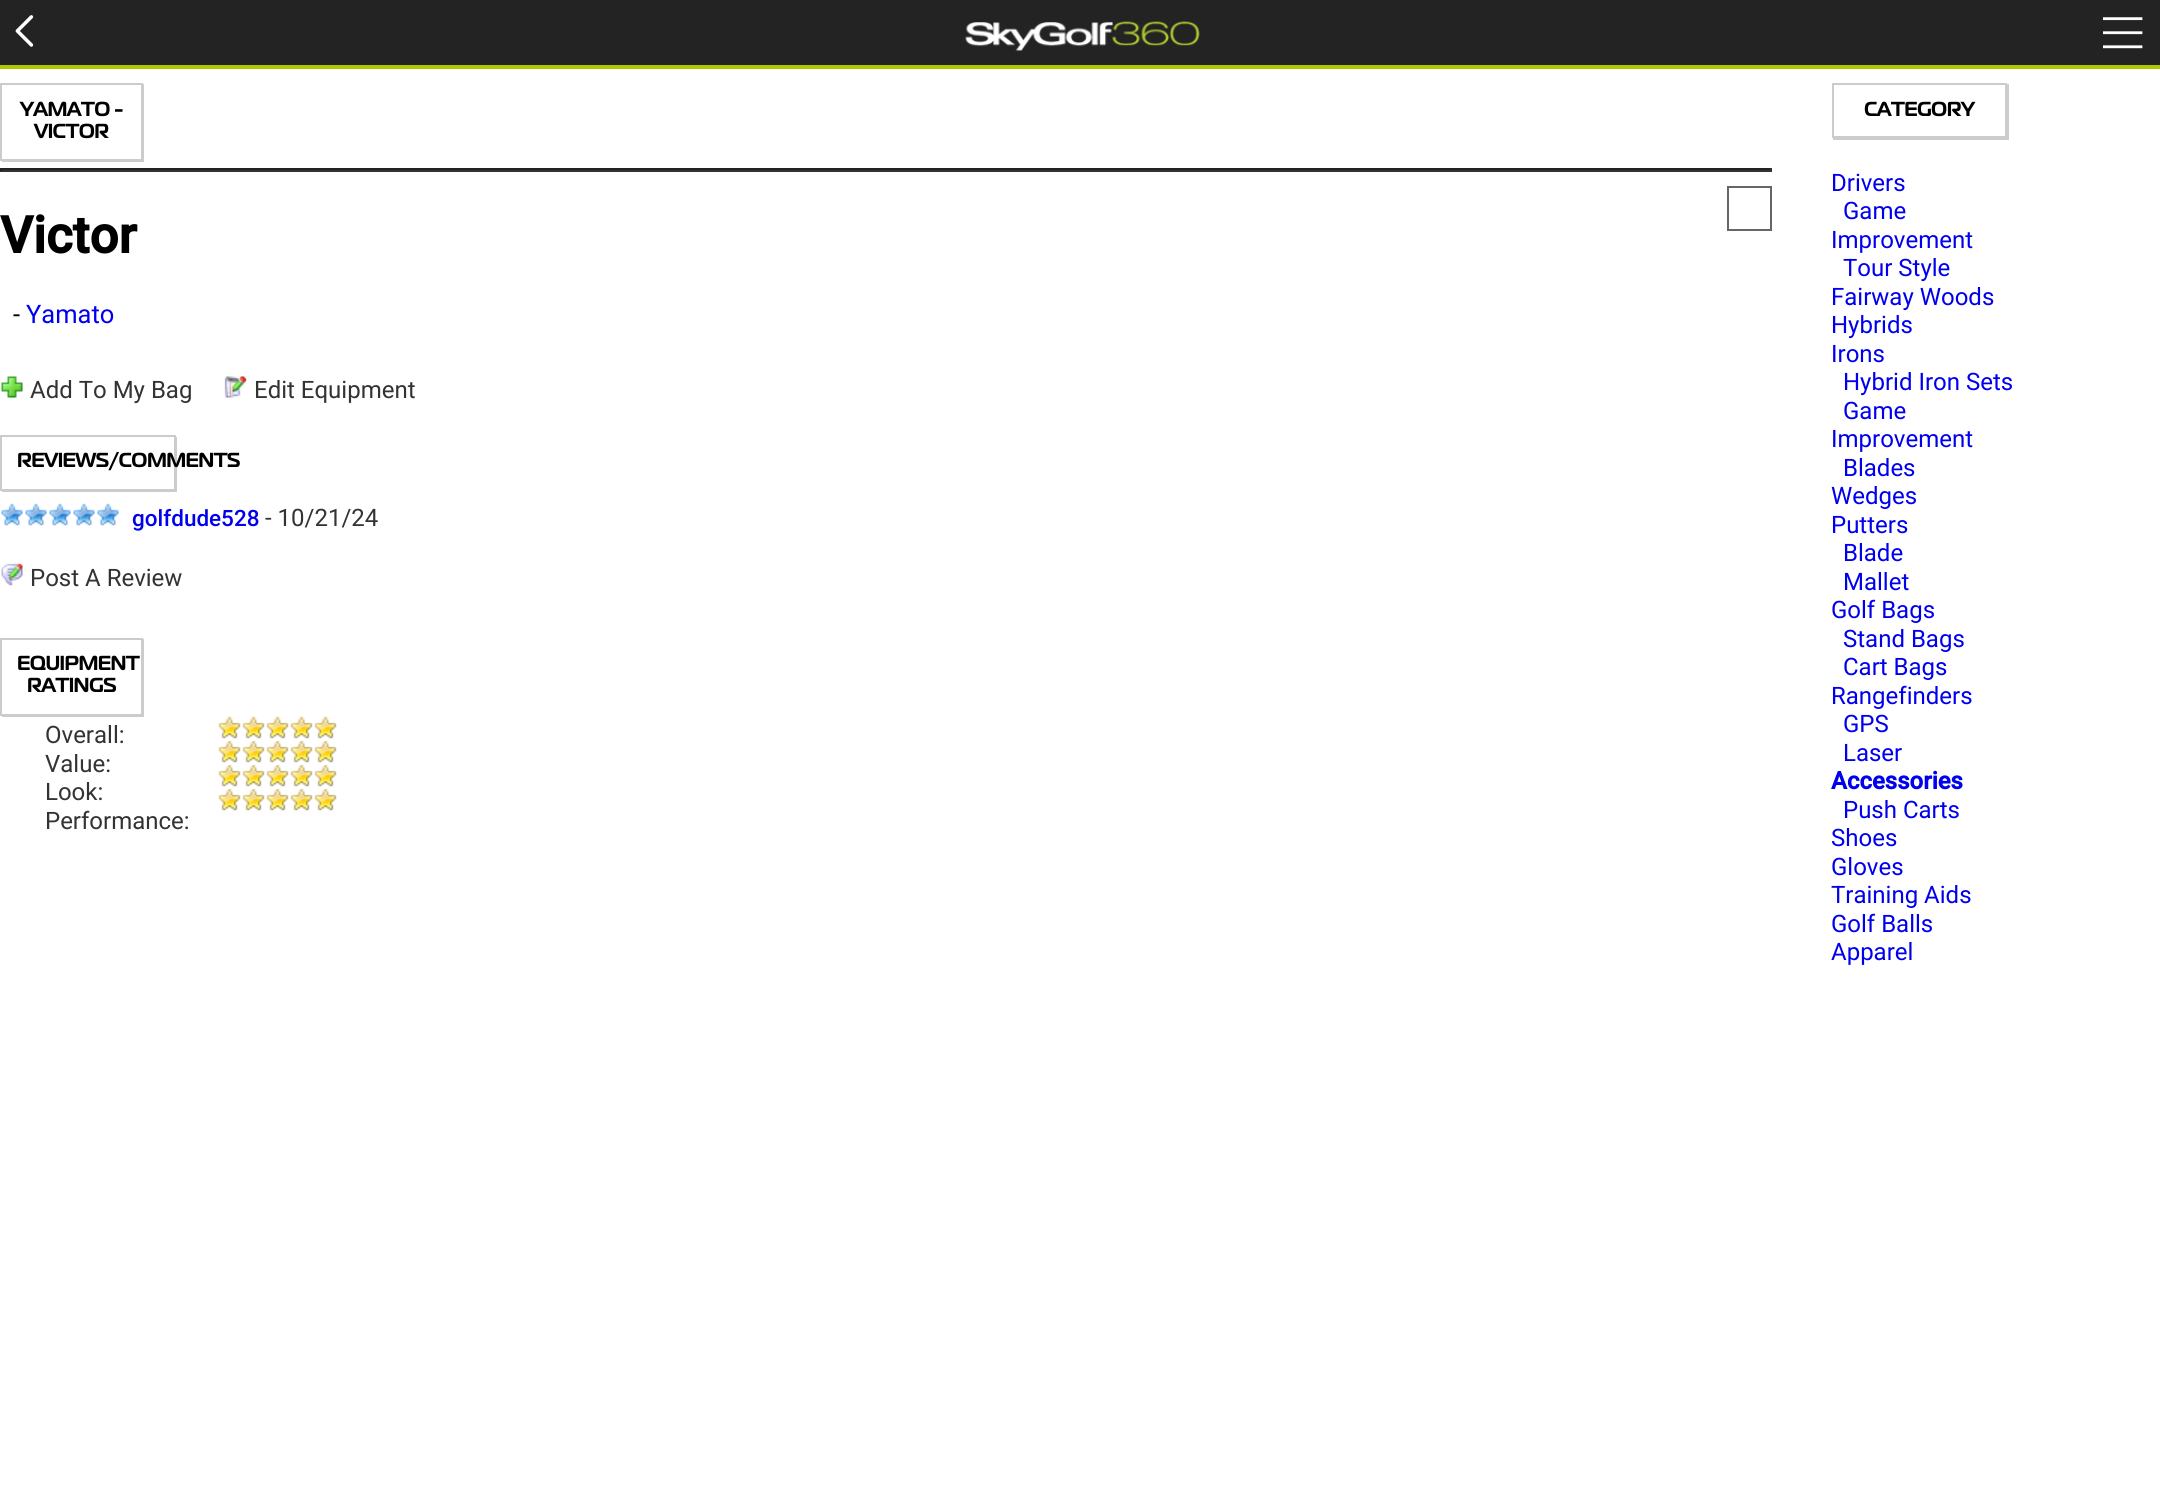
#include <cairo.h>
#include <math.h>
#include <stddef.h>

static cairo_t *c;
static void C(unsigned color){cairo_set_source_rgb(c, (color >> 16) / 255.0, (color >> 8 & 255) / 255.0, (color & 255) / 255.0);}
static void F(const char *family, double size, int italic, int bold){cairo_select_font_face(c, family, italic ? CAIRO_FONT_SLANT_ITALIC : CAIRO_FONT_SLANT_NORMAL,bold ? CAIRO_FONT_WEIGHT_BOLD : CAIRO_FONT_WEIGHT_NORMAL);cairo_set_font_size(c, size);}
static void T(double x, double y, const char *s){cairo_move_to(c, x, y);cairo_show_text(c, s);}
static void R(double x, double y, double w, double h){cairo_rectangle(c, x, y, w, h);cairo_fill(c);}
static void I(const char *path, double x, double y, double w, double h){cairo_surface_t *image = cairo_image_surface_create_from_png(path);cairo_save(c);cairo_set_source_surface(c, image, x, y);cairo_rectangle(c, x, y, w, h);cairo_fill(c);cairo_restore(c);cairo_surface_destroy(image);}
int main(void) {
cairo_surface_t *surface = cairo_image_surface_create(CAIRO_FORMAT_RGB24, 2160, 1512);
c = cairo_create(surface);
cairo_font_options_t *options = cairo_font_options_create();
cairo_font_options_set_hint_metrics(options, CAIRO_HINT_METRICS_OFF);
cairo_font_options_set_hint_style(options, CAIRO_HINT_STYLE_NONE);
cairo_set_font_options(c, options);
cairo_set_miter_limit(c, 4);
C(0xffffff);
cairo_paint(c);
C(0xafc603);
R(0,65,2160,4);
C(0x232323);
R(0,0,2160,65);
I("1.png",965,21,235,30);
I("2.png",15,15,19,32);
I("3.png",2103,17,40,32);
C(0xcccccc);
cairo_new_path(c);
cairo_move_to(c,2,160);
cairo_line_to(c,2,162);
cairo_line_to(c,144,162);
cairo_line_to(c,144,84);
cairo_line_to(c,142,84);
cairo_line_to(c,142,160);
cairo_close_path(c);
cairo_fill(c);
cairo_rectangle(c,1,84,141,76);
cairo_stroke(c);
F("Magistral",19.5,0,1);
C(0x000000);
T(20,116,"YAMATO -");
T(34,138,"VICTOR");
C(0x222222);
R(0,168,1772,2);
C(0x333333);
R(1770,168,2,3);
R(0,170,1772,2);
C(0x222222);
R(0,168,2,3);
F("Roboto",51,0,1);
C(0x000000);
T(0,253,"Victor");
cairo_rectangle(c,1728,187,43,43);
C(0x666666);
cairo_stroke(c);
F("Roboto",25.5,0,0);
C(0x000000);
T(13,323,"-");
C(0x0000ee);
T(26,323,"Yamato");
I("4.png",1,376,22,22);
F("Roboto",24,0,0);
C(0x333333);
T(30,398,"Add To My Bag");
I("5.png",224,376,23,22);
T(254,398,"Edit Equipment");
C(0xcccccc);
cairo_new_path(c);
cairo_move_to(c,2,490);
cairo_line_to(c,2,492);
cairo_line_to(c,177,492);
cairo_line_to(c,177,437);
cairo_line_to(c,176,437);
cairo_line_to(c,176,490);
cairo_close_path(c);
cairo_fill(c);
cairo_rectangle(c,1,436,174,54);
cairo_stroke(c);
F("Magistral",19.5,0,1);
C(0x000000);
T(17,467,"REVIEWS/COMMENTS");
I("6.png",1,503,22,23);
I("6.png",25,503,22,23);
I("6.png",49,503,22,23);
I("6.png",73,503,22,23);
I("6.png",97,503,22,23);
F("Roboto Medium",22.5,0,0);
C(0x0000ee);
T(132,526,"golfdude528");
F("Roboto",24,0,0);
C(0x333333);
T(265,526,"- 10/21/24");
I("7.png",1,563,22,23);
T(30,586,"Post A Review");
C(0xcccccc);
cairo_new_path(c);
cairo_move_to(c,2,716);
cairo_line_to(c,2,717);
cairo_line_to(c,144,717);
cairo_line_to(c,144,639);
cairo_line_to(c,142,639);
cairo_line_to(c,142,716);
cairo_close_path(c);
cairo_fill(c);
cairo_rectangle(c,1,639,141,76);
cairo_stroke(c);
F("Magistral",19.5,0,1);
C(0x000000);
T(17,670,"EQUIPMENT");
T(27,692,"RATINGS");
F("Roboto",24,0,0);
C(0x333333);
T(45,743,"Overall:");
I("8.png",218,716,23,23);
I("8.png",242,716,23,23);
I("8.png",266,716,23,23);
I("9.png",290,716,23,23);
I("8.png",314,716,23,23);
T(45,772,"Value:");
I("8.png",218,740,23,23);
I("8.png",242,740,23,23);
I("8.png",266,740,23,23);
I("9.png",290,740,23,23);
I("8.png",314,740,23,23);
I("8.png",218,764,23,23);
I("8.png",242,764,23,23);
I("8.png",266,764,23,23);
I("9.png",290,764,23,23);
I("8.png",314,764,23,23);
T(45,800,"Look:");
I("8.png",218,788,23,23);
I("8.png",242,788,23,23);
I("8.png",266,788,23,23);
I("9.png",290,788,23,23);
I("8.png",314,788,23,23);
T(45,829,"Performance:");
C(0xcccccc);
cairo_new_path(c);
cairo_move_to(c,1833,138);
cairo_line_to(c,1833,140);
cairo_line_to(c,2009,140);
cairo_line_to(c,2009,84);
cairo_line_to(c,2007,84);
cairo_line_to(c,2007,138);
cairo_close_path(c);
cairo_fill(c);
cairo_rectangle(c,1833,84,173,53);
cairo_stroke(c);
F("Magistral",19.5,0,1);
C(0x000000);
T(1864,116,"CATEGORY");
F("Roboto",24,0,0);
C(0x0000ee);
T(1831,191,"Drivers");
T(1843,219,"Game");
T(1831,248,"Improvement");
T(1843,276,"Tour Style");
T(1831,305,"Fairway Woods");
T(1831,333,"Hybrids");
T(1831,362,"Irons");
T(1843,390,"Hybrid Iron Sets");
T(1843,419,"Game");
T(1831,447,"Improvement");
T(1843,476,"Blades");
T(1831,504,"Wedges");
T(1831,533,"Putters");
T(1843,561,"Blade");
T(1843,590,"Mallet");
T(1831,618,"Golf Bags");
T(1843,647,"Stand Bags");
T(1843,675,"Cart Bags");
T(1831,704,"Rangefinders");
T(1843,732,"GPS");
T(1843,761,"Laser");
F("Roboto",24,0,1);
T(1831,789,"Accessories");
F("Roboto",24,0,0);
T(1843,818,"Push Carts");
T(1831,846,"Shoes");
T(1831,875,"Gloves");
T(1831,903,"Training Aids");
T(1831,932,"Golf Balls");
T(1831,960,"Apparel");
cairo_surface_write_to_png(surface, "o.png");
cairo_font_options_destroy(options);
cairo_destroy(c);
cairo_surface_destroy(surface);
return 0;
}
